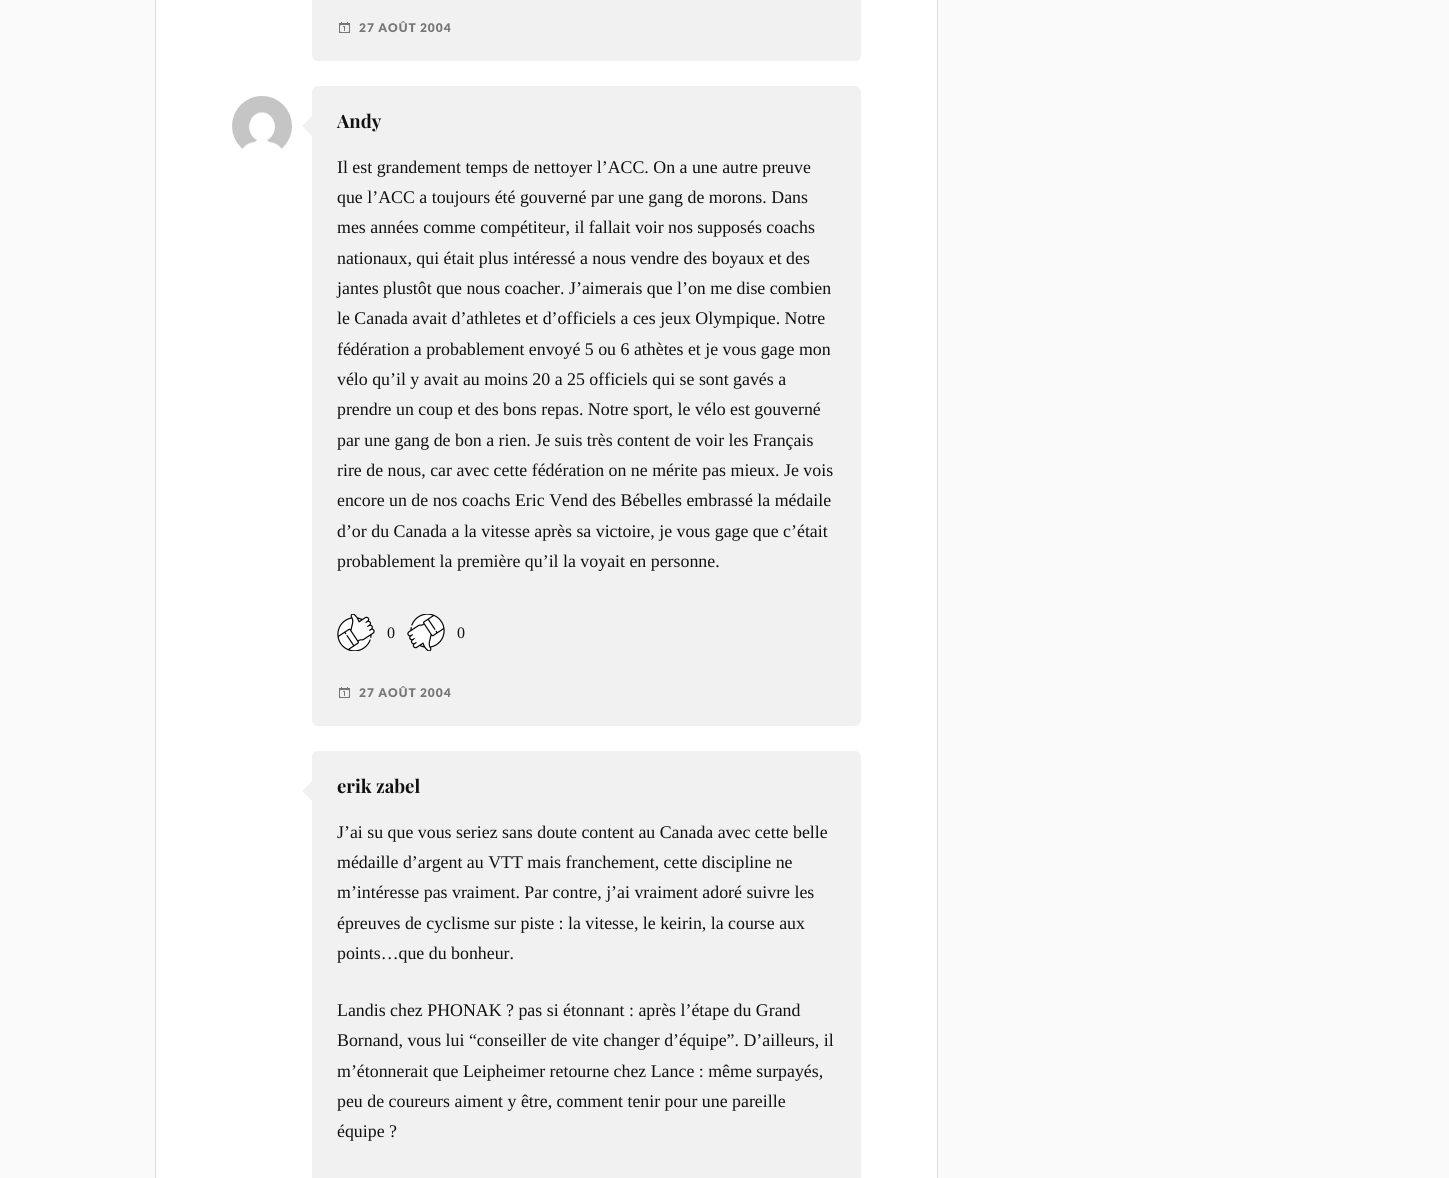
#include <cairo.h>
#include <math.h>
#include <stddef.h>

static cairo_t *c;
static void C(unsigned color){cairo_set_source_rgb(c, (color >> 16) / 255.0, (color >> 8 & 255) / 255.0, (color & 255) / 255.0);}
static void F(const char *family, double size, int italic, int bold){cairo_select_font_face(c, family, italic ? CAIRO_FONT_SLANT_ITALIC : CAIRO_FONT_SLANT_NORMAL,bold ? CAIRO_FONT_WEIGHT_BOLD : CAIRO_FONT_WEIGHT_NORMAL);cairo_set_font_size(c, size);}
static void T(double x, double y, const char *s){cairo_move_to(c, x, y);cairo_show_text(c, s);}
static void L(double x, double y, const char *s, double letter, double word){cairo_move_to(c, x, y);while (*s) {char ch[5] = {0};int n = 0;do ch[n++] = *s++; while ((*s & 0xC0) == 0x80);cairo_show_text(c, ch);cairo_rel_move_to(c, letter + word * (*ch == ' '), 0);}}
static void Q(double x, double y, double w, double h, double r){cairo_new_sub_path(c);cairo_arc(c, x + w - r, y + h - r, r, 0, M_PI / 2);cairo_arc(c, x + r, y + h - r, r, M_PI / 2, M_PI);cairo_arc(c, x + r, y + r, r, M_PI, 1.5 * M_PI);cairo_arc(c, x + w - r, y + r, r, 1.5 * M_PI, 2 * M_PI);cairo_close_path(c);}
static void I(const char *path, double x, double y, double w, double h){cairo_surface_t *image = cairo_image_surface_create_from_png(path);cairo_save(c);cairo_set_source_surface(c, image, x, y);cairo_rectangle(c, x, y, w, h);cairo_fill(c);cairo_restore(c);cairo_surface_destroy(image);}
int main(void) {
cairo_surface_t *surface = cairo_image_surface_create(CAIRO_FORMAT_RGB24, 1449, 1178);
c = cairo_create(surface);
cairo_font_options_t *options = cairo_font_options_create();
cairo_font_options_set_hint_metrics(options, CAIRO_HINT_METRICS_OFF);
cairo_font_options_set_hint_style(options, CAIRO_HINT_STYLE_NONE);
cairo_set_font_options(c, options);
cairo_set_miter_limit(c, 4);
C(0xfafafa);
cairo_paint(c);
C(0xffffff);
cairo_rectangle(c,155.5,-.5,782,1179);
cairo_fill_preserve(c);
C(0xdddddd);
cairo_set_line_width(c,1);
cairo_stroke(c);
C(0xf1f1f1);
Q(312,-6,549,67,6);
cairo_fill(c);
I("1.png",339,22,11,11);
F("Lato Black",12,0,0);
C(0x777777);
L(359,32,"27 AOÛT 2004",1,0);
I("2.png",232,96,60,53);
C(0xf1f1f1);
Q(312,86,549,640,6);
cairo_fill(c);
cairo_new_path(c);
cairo_move_to(c,312,116);
cairo_line_to(c,312,136);
cairo_line_to(c,302,126);
cairo_close_path(c);
cairo_fill(c);
F("Playfair Display",18.5,0,1);
C(0x111111);
T(337,128,"Andy");
F("Liberation Serif",17.85,0,0);
T(337,173,"Il est grandement temps de nettoyer l’ACC. On a une autre preuve");
T(337,203,"que l’ACC a toujours été gouverné par une gang de morons. Dans");
T(337,233,"mes années comme compétiteur, il fallait voir nos supposés coachs");
T(337,264,"nationaux, qui était plus intéressé a nous vendre des boyaux et des");
T(337,294,"jantes plustôt que nous coacher. J’aimerais que l’on me dise combien");
T(337,324,"le Canada avait d’athletes et d’officiels a ces jeux Olympique. Notre");
T(337,355,"fédération a probablement envoyé 5 ou 6 athètes et je vous gage mon");
T(337,385,"vélo qu’il y avait au moins 20 a 25 officiels qui se sont gavés a");
T(337,415,"prendre un coup et des bons repas. Notre sport, le vélo est gouverné");
T(337,446,"par une gang de bon a rien. Je suis très content de voir les Français");
T(337,476,"rire de nous, car avec cette fédération on ne mérite pas mieux. Je vois");
T(337,506,"encore un de nos coachs Eric Vend des Bébelles embrassé la médaile");
T(337,537,"d’or du Canada a la vitesse après sa victoire, je vous gage que c’était");
T(337,567,"probablement la première qu’il la voyait en personne.");
I("3.png",337,614,38,37);
F("Liberation Serif",16,0,0);
T(387,638,"0");
I("4.png",407,614,38,37);
T(457,638,"0");
I("1.png",339,687,11,11);
F("Lato Black",12,0,0);
C(0x777777);
L(359,697,"27 AOÛT 2004",1,0);
C(0xf1f1f1);
Q(312,751,549,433,6);
cairo_fill(c);
cairo_new_path(c);
cairo_move_to(c,312,781);
cairo_line_to(c,312,801);
cairo_line_to(c,302,791);
cairo_close_path(c);
cairo_fill(c);
F("Playfair Display",18.5,0,1);
C(0x111111);
T(337,793,"erik zabel");
F("Liberation Serif",17.85,0,0);
T(337,838,"J’ai su que vous seriez sans doute content au Canada avec cette belle");
T(337,868,"médaille d’argent au VTT mais franchement, cette discipline ne");
T(337,898,"m’intéresse pas vraiment. Par contre, j’ai vraiment adoré suivre les");
T(337,929,"épreuves de cyclisme sur piste : la vitesse, le keirin, la course aux");
T(337,959,"points…que du bonheur.");
T(337,1016,"Landis chez PHONAK ? pas si étonnant : après l’étape du Grand");
T(337,1046,"Bornand, vous lui “conseiller de vite changer d’équipe”. D’ailleurs, il");
T(337,1077,"m’étonnerait que Leipheimer retourne chez Lance : même surpayés,");
T(337,1107,"peu de coureurs aiment y être, comment tenir pour une pareille");
T(337,1137,"équipe ?");
cairo_surface_write_to_png(surface, "o.png");
cairo_font_options_destroy(options);
cairo_destroy(c);
cairo_surface_destroy(surface);
return 0;
}
